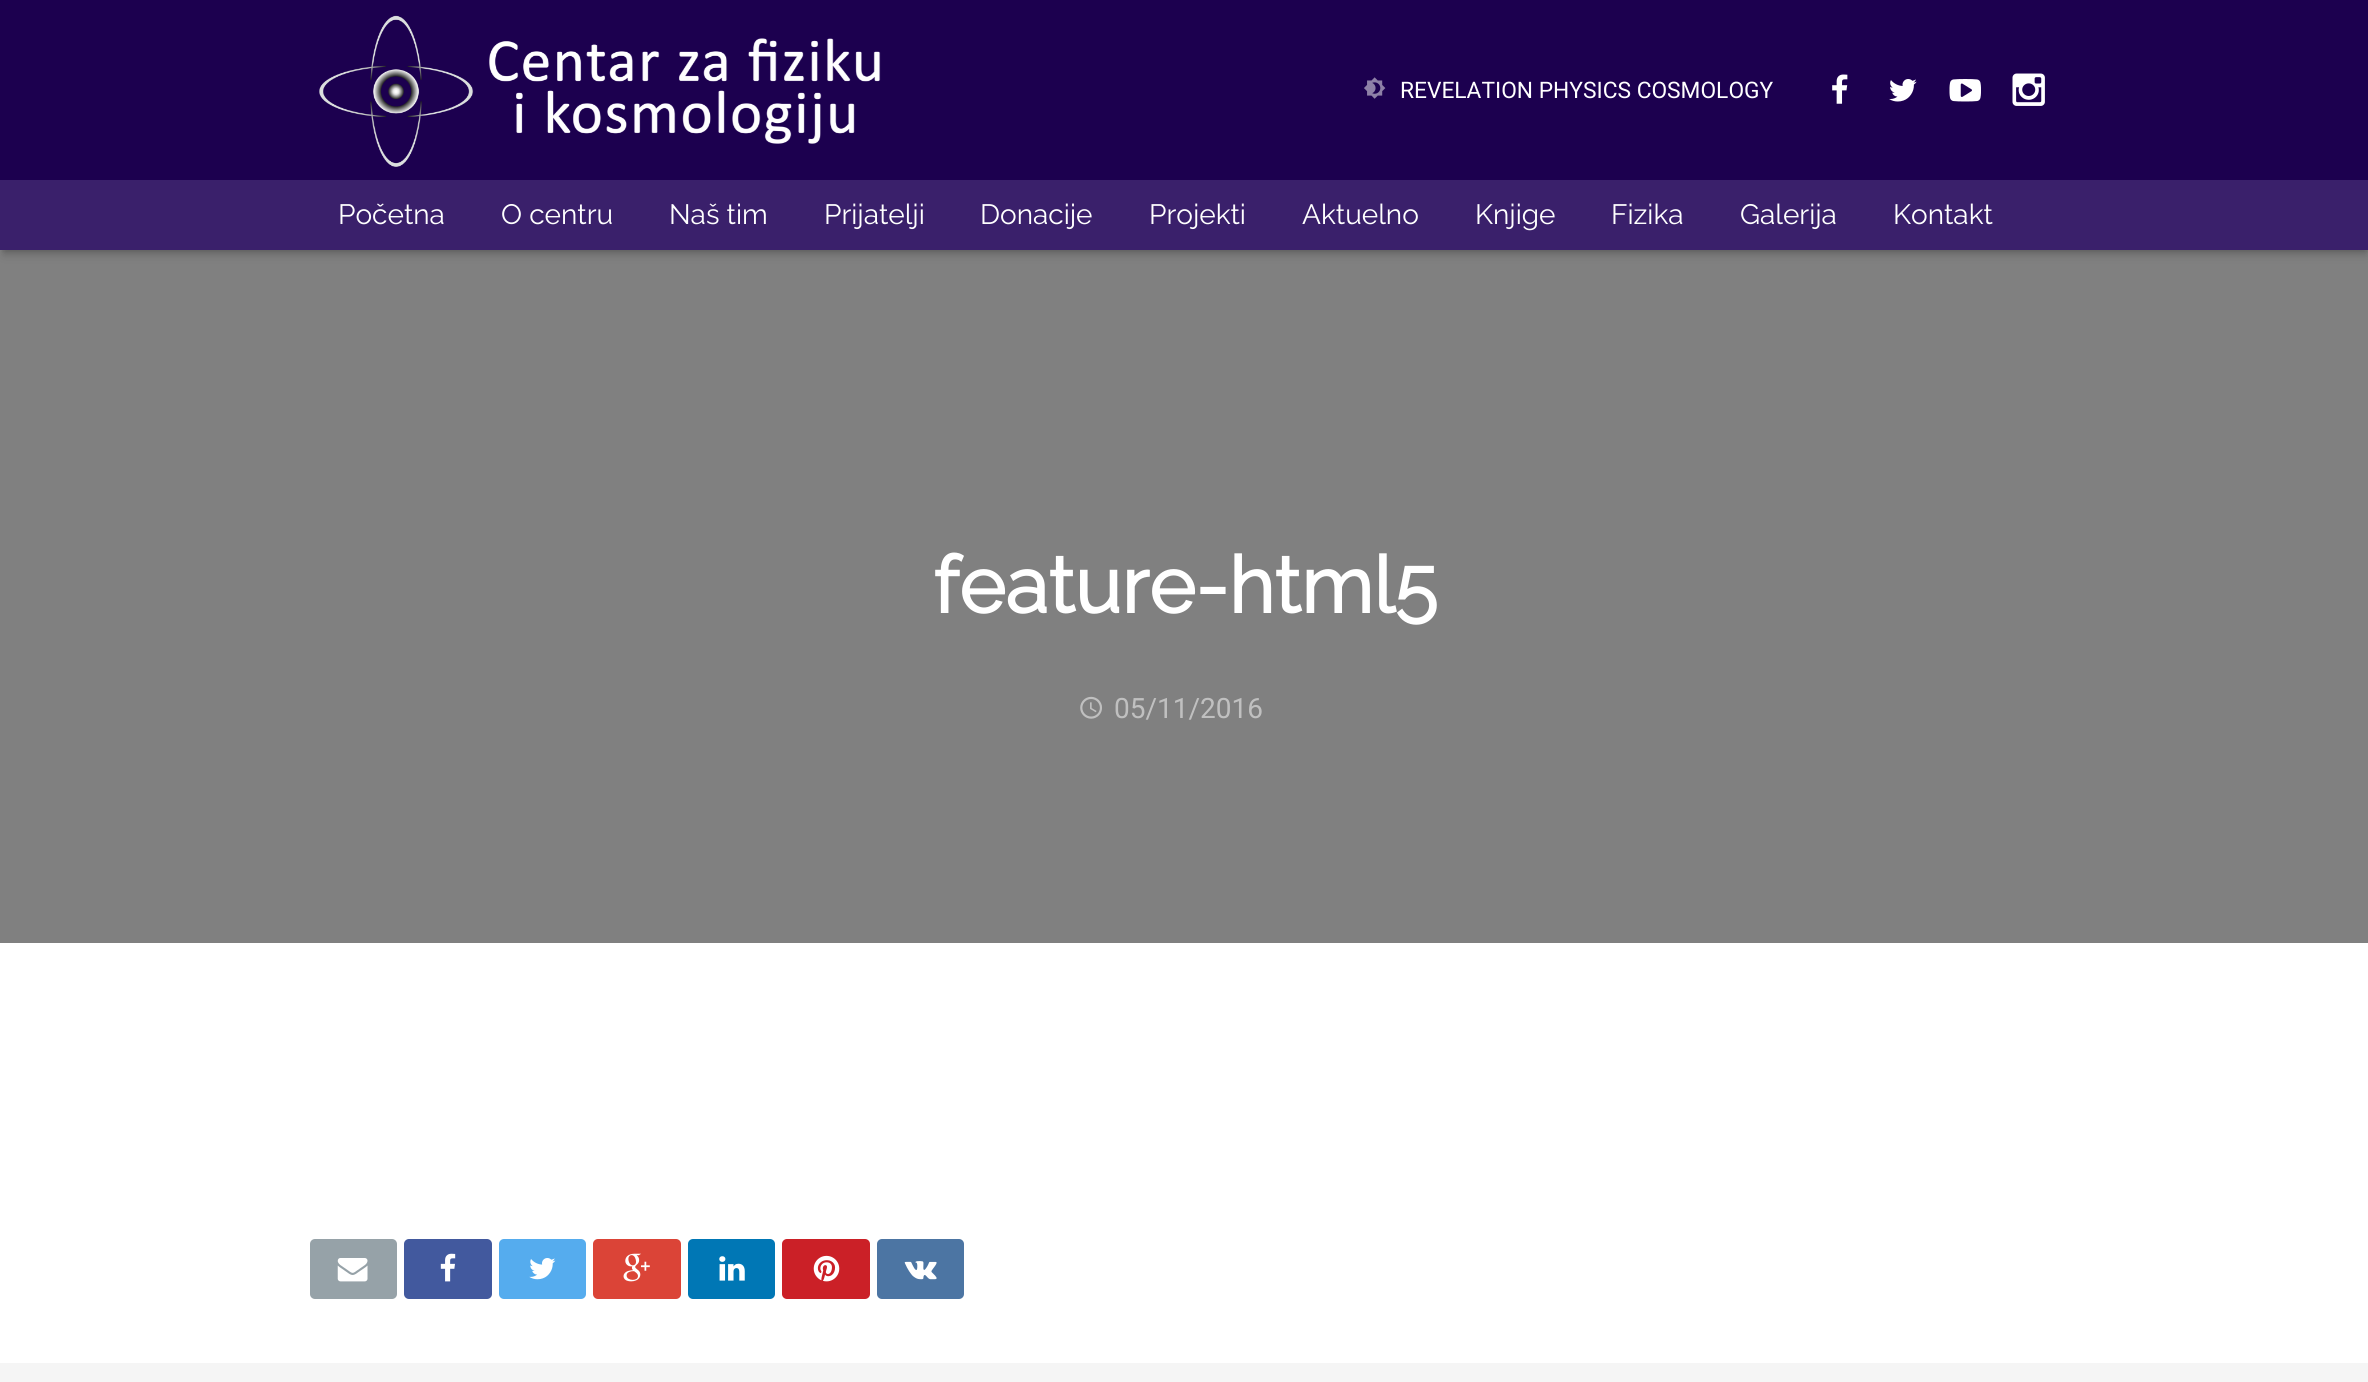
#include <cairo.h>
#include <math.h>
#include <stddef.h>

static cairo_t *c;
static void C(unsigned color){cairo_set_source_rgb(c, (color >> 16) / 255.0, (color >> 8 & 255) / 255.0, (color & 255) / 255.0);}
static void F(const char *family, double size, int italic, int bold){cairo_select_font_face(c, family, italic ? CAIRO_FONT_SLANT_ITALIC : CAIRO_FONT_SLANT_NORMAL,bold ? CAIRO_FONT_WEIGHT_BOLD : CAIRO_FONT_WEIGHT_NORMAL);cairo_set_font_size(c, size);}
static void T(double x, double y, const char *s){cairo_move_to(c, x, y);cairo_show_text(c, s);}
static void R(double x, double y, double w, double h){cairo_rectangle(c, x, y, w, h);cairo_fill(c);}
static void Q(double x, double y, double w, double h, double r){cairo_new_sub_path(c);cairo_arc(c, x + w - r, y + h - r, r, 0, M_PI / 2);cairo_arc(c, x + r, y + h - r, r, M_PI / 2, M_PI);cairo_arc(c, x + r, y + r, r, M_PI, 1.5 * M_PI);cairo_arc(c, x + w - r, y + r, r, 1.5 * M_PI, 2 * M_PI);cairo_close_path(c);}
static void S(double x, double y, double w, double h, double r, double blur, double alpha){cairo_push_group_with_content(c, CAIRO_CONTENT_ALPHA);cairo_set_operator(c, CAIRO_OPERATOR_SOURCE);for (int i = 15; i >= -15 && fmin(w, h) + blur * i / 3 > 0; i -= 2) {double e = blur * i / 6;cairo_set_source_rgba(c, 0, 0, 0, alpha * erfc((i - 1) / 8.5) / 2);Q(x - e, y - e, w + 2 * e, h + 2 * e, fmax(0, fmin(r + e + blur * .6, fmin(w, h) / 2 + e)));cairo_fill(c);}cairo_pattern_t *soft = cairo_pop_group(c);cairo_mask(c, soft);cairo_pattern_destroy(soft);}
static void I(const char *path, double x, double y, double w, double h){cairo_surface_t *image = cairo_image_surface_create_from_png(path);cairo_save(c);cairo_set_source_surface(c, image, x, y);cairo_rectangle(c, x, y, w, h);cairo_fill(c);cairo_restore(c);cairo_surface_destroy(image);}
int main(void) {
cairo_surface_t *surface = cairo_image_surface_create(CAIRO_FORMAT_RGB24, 2368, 1382);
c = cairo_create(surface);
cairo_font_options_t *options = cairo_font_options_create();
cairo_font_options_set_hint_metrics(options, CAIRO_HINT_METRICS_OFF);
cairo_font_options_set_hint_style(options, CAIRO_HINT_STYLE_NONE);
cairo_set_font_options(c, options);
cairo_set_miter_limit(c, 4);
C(0xffffff);
cairo_paint(c);
C(0x1c004f);
R(0,0,2368,180);
I("1.png",319,15,562,152);
I("2.png",1364,77,22,22);
F("Roboto",22.75,0,0);
C(0xffffff);
T(1400,98,"REVELATION PHYSICS COSMOLOGY");
I("3.png",1832,74,16,30);
I("4.png",1889,79,28,23);
I("5.png",1949,79,32,23);
I("6.png",2012,73,33,33);
C(0x808080);
R(0,250,2368,693);
C(0x000000);
S(2,186,2366,66,0,1,.05);
S(4,191,2362,63,0,4.5,.22);
C(0x3a206b);
R(0,180,2368,70);
F("Raleway Thin",28,0,0);
C(0xffffff);
T(338,224,"Početna");
T(501,224,"O centru");
T(669,224,"Naš tim");
T(824,224,"Prijatelji");
T(980,224,"Donacije");
T(1149,224,"Projekti");
T(1302,224,"Aktuelno");
T(1475,224,"Knjige");
T(1611,224,"Fizika");
T(1740,224,"Galerija");
T(1893,224,"Kontakt");
F("Raleway",78.75,0,1);
T(933,613,"feature-html5");
I("7.png",1080,696,22,23);
F("Roboto",28,0,0);
C(0xc0c0c0);
T(1114,718,"05/11/2016");
C(0x96a2a8);
Q(310,1239,87,60,5);
cairo_fill(c);
I("8.png",337,1258,31,24);
C(0x42599e);
Q(404,1239,88,60,5);
cairo_fill(c);
I("9.png",440,1253,16,29);
C(0x55acee);
Q(499,1239,87,60,5);
cairo_fill(c);
I("10.png",529,1258,27,22);
C(0xdb4437);
Q(593,1239,88,60,5);
cairo_fill(c);
I("11.png",623,1253,27,29);
C(0x0077b5);
Q(688,1239,87,60,5);
cairo_fill(c);
I("12.png",719,1256,26,25);
C(0xcb2027);
Q(782,1239,88,60,5);
cairo_fill(c);
I("13.png",813,1255,27,27);
C(0x4c75a3);
Q(877,1239,87,60,5);
cairo_fill(c);
I("14.png",904,1261,33,19);
C(0xf5f5f5);
R(0,1363,2368,19);
cairo_surface_write_to_png(surface, "o.png");
cairo_font_options_destroy(options);
cairo_destroy(c);
cairo_surface_destroy(surface);
return 0;
}
